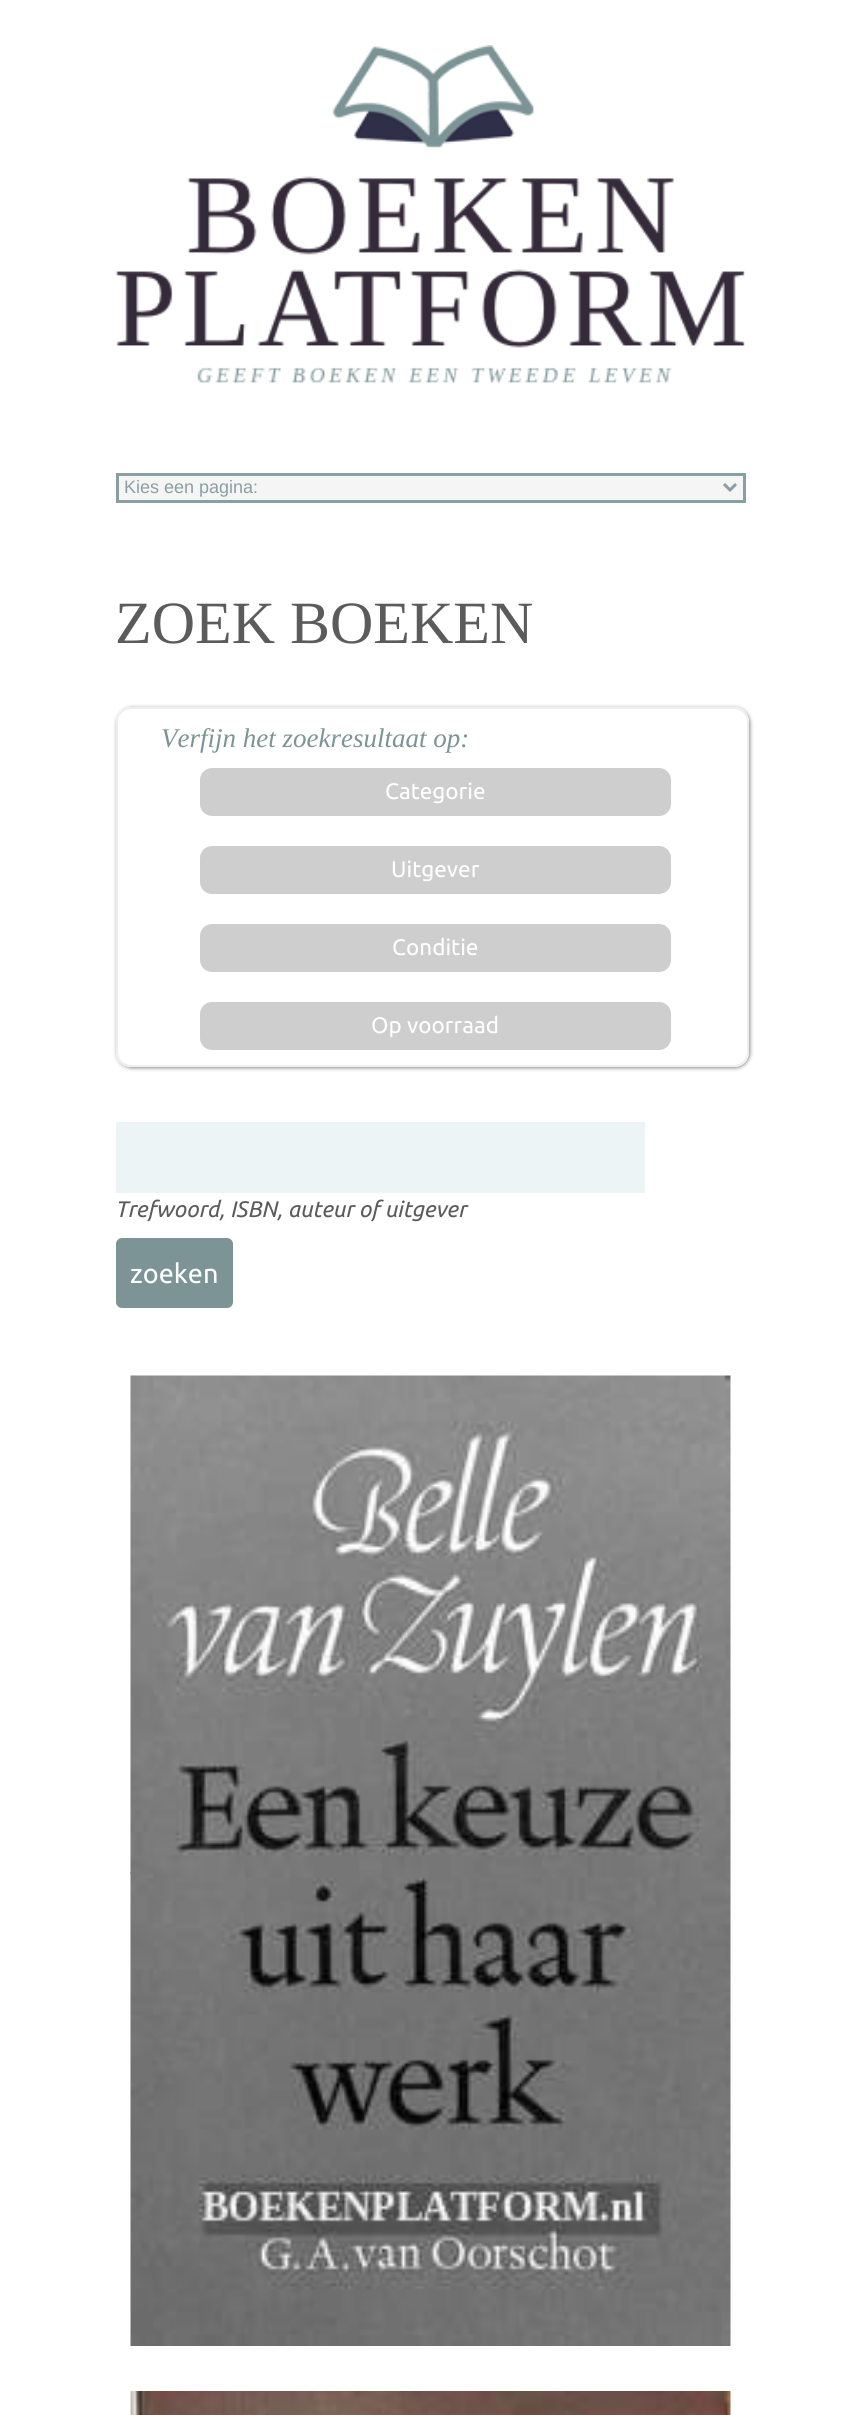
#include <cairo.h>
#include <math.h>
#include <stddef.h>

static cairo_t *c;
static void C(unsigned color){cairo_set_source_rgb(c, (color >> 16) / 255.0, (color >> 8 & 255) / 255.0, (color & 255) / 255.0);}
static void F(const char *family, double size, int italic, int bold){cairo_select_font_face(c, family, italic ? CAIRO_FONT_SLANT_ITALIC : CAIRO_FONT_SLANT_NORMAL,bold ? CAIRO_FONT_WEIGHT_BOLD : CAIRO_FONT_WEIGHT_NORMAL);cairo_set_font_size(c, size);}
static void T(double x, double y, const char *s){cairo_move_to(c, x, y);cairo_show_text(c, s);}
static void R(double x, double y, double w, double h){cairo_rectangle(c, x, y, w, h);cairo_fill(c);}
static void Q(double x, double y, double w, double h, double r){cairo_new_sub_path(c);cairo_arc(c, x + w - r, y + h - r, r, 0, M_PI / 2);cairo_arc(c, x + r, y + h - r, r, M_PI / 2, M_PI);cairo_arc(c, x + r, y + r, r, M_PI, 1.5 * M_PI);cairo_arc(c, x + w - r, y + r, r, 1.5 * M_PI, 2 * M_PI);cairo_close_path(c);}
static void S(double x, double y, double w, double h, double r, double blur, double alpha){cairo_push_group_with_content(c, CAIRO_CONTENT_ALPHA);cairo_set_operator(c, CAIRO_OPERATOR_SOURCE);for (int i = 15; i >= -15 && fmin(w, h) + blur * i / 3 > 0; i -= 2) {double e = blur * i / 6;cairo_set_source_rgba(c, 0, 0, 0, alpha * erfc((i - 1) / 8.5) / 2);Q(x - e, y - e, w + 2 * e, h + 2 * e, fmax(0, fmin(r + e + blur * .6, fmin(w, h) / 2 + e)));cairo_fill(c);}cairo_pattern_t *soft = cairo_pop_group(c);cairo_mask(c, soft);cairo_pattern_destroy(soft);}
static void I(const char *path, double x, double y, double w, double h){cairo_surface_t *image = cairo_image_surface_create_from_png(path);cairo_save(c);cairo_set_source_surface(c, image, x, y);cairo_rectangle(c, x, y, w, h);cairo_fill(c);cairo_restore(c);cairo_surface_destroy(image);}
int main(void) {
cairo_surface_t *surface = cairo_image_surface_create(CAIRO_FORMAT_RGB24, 859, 2415);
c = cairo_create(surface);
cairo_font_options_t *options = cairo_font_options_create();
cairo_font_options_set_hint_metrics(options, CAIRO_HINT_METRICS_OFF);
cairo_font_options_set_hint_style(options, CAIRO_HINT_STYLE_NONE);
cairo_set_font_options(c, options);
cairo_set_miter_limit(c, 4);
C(0xffffff);
cairo_paint(c);
I("1.png",115,45,630,339);
C(0xf5f5f5);
cairo_rectangle(c,117.5,474.5,627,27);
cairo_fill_preserve(c);
C(0x899fa1);
cairo_set_line_width(c,3);
cairo_stroke(c);
cairo_new_path(c);
cairo_move_to(c,724,484);
cairo_line_to(c,730,490);
cairo_line_to(c,736,484);
cairo_stroke(c);
F("Liberation Sans",18,0,0);
T(124,493,"Kies een pagina:");
F("Tinos",60,0,0);
C(0x5b5b5b);
T(115,643,"ZOEK BOEKEN");
cairo_save(c);
cairo_set_fill_rule(c,CAIRO_FILL_RULE_EVEN_ODD);
cairo_new_path(c);
cairo_move_to(c,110,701);
cairo_line_to(c,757,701);
cairo_line_to(c,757,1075);
cairo_line_to(c,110,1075);
cairo_close_path(c);
cairo_move_to(c,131,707);
cairo_line_to(c,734,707);
cairo_curve_to(c,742.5,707,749,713.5,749,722);
cairo_line_to(c,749,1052);
cairo_curve_to(c,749,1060.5,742.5,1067,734,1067);
cairo_line_to(c,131,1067);
cairo_curve_to(c,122.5,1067,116,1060.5,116,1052);
cairo_line_to(c,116,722);
cairo_curve_to(c,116,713.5,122.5,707,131,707);
cairo_close_path(c);
cairo_clip(c);
C(0x888888);
S(117,708,633,360,15,2,1);
cairo_restore(c);
Q(117,708,631,358,14);
C(0xeeeeee);
cairo_set_line_width(c,2);
cairo_stroke(c);
F("Tinos",27,1,0);
C(0x7c9496);
T(161,747,"Verfijn het zoekresultaat op:");
C(0xcecece);
Q(200,768,471,48,12);
cairo_fill(c);
F("Ubuntu",22.5,0,0);
C(0xffffff);
T(385,799,"Categorie");
C(0xcecece);
Q(200,846,471,48,12);
cairo_fill(c);
C(0xffffff);
T(391,877,"Uitgever");
C(0xcecece);
Q(200,924,471,48,12);
cairo_fill(c);
C(0xffffff);
T(392,955,"Conditie");
C(0xcecece);
Q(200,1002,471,48,12);
cairo_fill(c);
C(0xffffff);
T(371,1033,"Op voorraad");
C(0xecf4f6);
R(116,1122,529,71);
F("Ubuntu",22.5,1,0);
C(0x5b5b5b);
T(115,1217,"Trefwoord, ISBN, auteur of uitgever");
C(0x7c9496);
Q(116,1238,117,70,6);
cairo_fill(c);
F("Ubuntu",27,0,0);
C(0xffffff);
T(130,1283,"zoeken");
cairo_new_path(c);
cairo_move_to(c,130.5,1873);
cairo_line_to(c,730.5,1873);
C(0x5b5b5b);
cairo_set_line_width(c,1.5);
cairo_set_dash(c,(double[]){1.5,1.5},2,0);
cairo_stroke(c);
I("2.png",130,1375,601,971);
I("3.png",130,2391,601,24);
cairo_surface_write_to_png(surface, "o.png");
cairo_font_options_destroy(options);
cairo_destroy(c);
cairo_surface_destroy(surface);
return 0;
}
